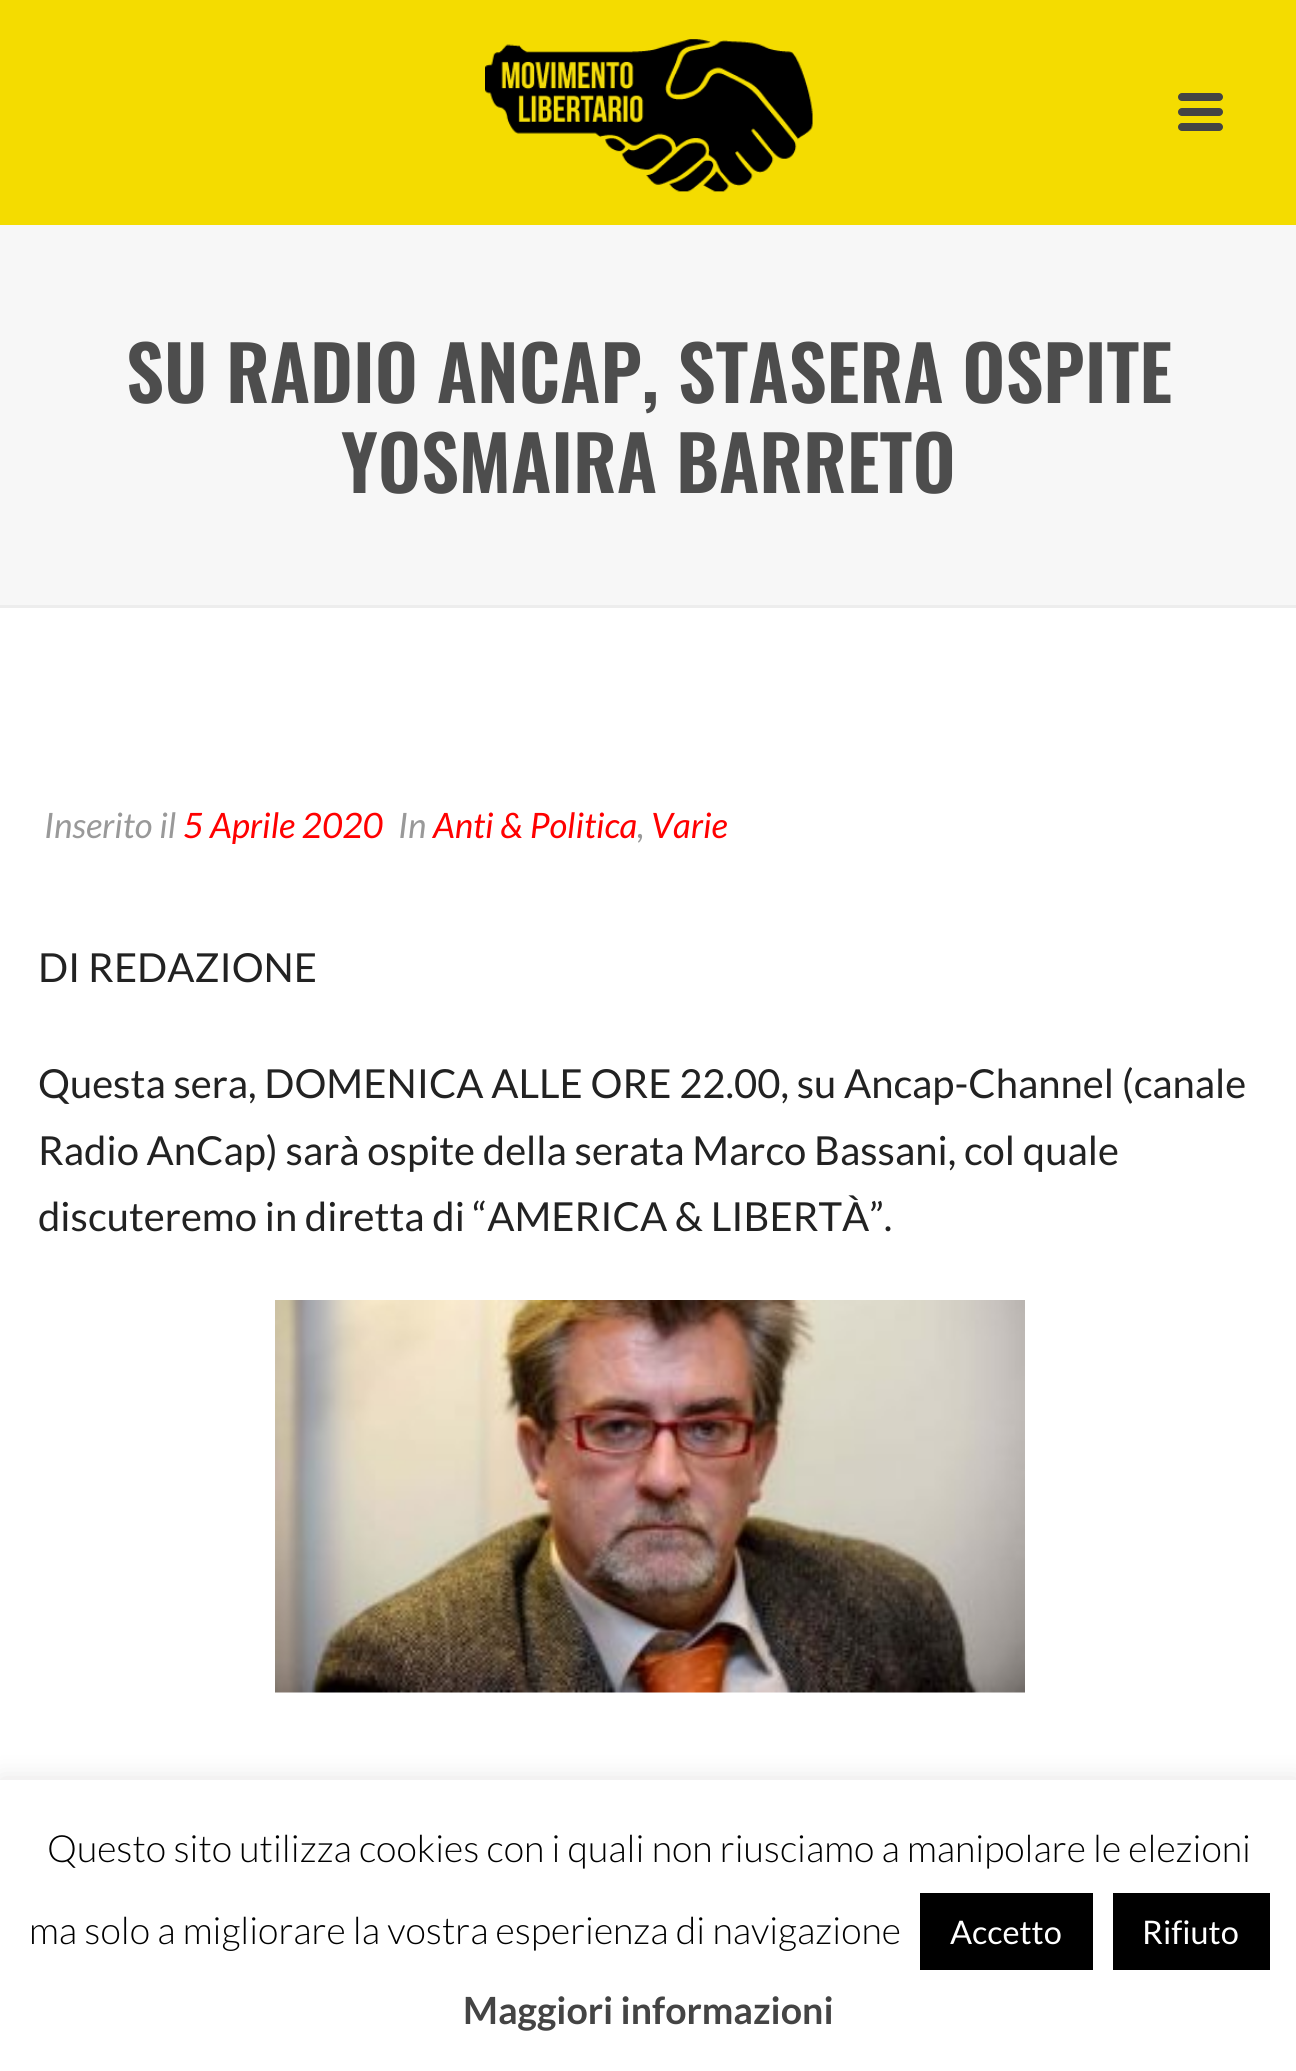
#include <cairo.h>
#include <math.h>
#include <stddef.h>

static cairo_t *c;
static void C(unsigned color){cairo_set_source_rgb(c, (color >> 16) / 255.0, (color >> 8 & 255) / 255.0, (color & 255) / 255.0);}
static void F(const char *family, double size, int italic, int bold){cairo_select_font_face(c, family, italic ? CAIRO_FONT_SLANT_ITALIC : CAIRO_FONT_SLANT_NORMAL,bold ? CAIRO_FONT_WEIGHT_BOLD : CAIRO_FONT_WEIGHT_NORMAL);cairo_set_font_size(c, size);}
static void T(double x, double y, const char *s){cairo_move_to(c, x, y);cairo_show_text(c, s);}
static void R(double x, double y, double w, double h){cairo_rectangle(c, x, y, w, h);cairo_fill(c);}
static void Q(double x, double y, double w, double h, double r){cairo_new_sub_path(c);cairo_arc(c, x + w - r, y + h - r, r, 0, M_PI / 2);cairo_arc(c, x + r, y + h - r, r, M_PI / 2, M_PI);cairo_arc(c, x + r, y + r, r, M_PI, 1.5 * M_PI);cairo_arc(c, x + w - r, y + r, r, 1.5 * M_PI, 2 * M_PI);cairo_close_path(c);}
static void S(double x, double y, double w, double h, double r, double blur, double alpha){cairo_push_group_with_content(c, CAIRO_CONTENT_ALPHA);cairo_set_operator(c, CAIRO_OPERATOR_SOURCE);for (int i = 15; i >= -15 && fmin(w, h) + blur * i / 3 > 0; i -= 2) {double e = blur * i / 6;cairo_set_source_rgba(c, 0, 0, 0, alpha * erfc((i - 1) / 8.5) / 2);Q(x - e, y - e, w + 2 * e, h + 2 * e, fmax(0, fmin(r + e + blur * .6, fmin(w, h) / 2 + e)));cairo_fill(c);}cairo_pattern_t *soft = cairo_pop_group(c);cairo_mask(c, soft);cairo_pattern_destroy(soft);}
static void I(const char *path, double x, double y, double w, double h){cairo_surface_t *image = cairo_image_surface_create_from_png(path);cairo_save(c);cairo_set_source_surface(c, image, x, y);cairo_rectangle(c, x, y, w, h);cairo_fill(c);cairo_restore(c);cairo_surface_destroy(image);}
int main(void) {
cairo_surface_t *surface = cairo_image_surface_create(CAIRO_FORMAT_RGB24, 1296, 2071);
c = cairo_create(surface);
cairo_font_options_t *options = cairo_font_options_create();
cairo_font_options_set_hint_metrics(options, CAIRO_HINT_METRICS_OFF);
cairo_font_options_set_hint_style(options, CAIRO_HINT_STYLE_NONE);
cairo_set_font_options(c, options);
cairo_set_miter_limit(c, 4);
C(0xffffff);
cairo_paint(c);
C(0xf7f7f7);
R(0,225,1296,380);
C(0xededed);
R(0,605,1296,3);
C(0xf4dc00);
R(0,0,1296,225);
I("1.png",485,39,328,153);
C(0x444444);
Q(1178,93,45,8,4);
cairo_fill(c);
Q(1178,108,45,8,4);
cairo_fill(c);
Q(1178,123,45,8,4);
cairo_fill(c);
F("Oswald SemiBold",75,0,0);
C(0x4d4d4d);
T(126,403,"SU RADIO ANCAP, STASERA OSPITE");
T(341,493,"YOSMAIRA BARRETO");
F("Lato",35,1,0);
C(0x999999);
T(44,838,"Inserito il");
C(0xff0000);
T(183,838,"5 Aprile 2020");
C(0x999999);
T(398,838,"In");
C(0xff0000);
T(433,838,"Anti & Politica");
C(0x999999);
T(637,838,",");
C(0xff0000);
T(651,838,"Varie");
F("Lato",40,0,0);
C(0x222222);
T(38,982,"DI REDAZIONE");
T(38,1098,"Questa sera, DOMENICA ALLE ORE 22.00, su Ancap-Channel (canale");
T(38,1165,"Radio AnCap) sarà ospite della serata Marco Bassani, col quale");
T(38,1231,"discuteremo in diretta di “AMERICA & LIBERTÀ”.");
I("2.png",275,1300,750,393);
C(0xacabab);
S(0,1778,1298,292,0,12.5,.3);
C(0xffffff);
R(0,1780,1296,291);
F("Lato Light",37.5,0,0);
C(0x000000);
T(47,1862,"Questo sito utilizza cookies con i quali non riusciamo a manipolare le elezioni");
T(29,1944,"ma solo a migliorare la vostra esperienza di navigazione");
R(920,1893,173,77);
F("Lato",32.5,0,0);
C(0xffffff);
T(950,1944,"Accetto");
C(0x000000);
R(1113,1893,157,77);
C(0xffffff);
T(1142,1944,"Rifiuto");
F("Lato",37.5,0,1);
C(0x444444);
T(463,2024,"Maggiori informazioni");
cairo_surface_write_to_png(surface, "o.png");
cairo_font_options_destroy(options);
cairo_destroy(c);
cairo_surface_destroy(surface);
return 0;
}
